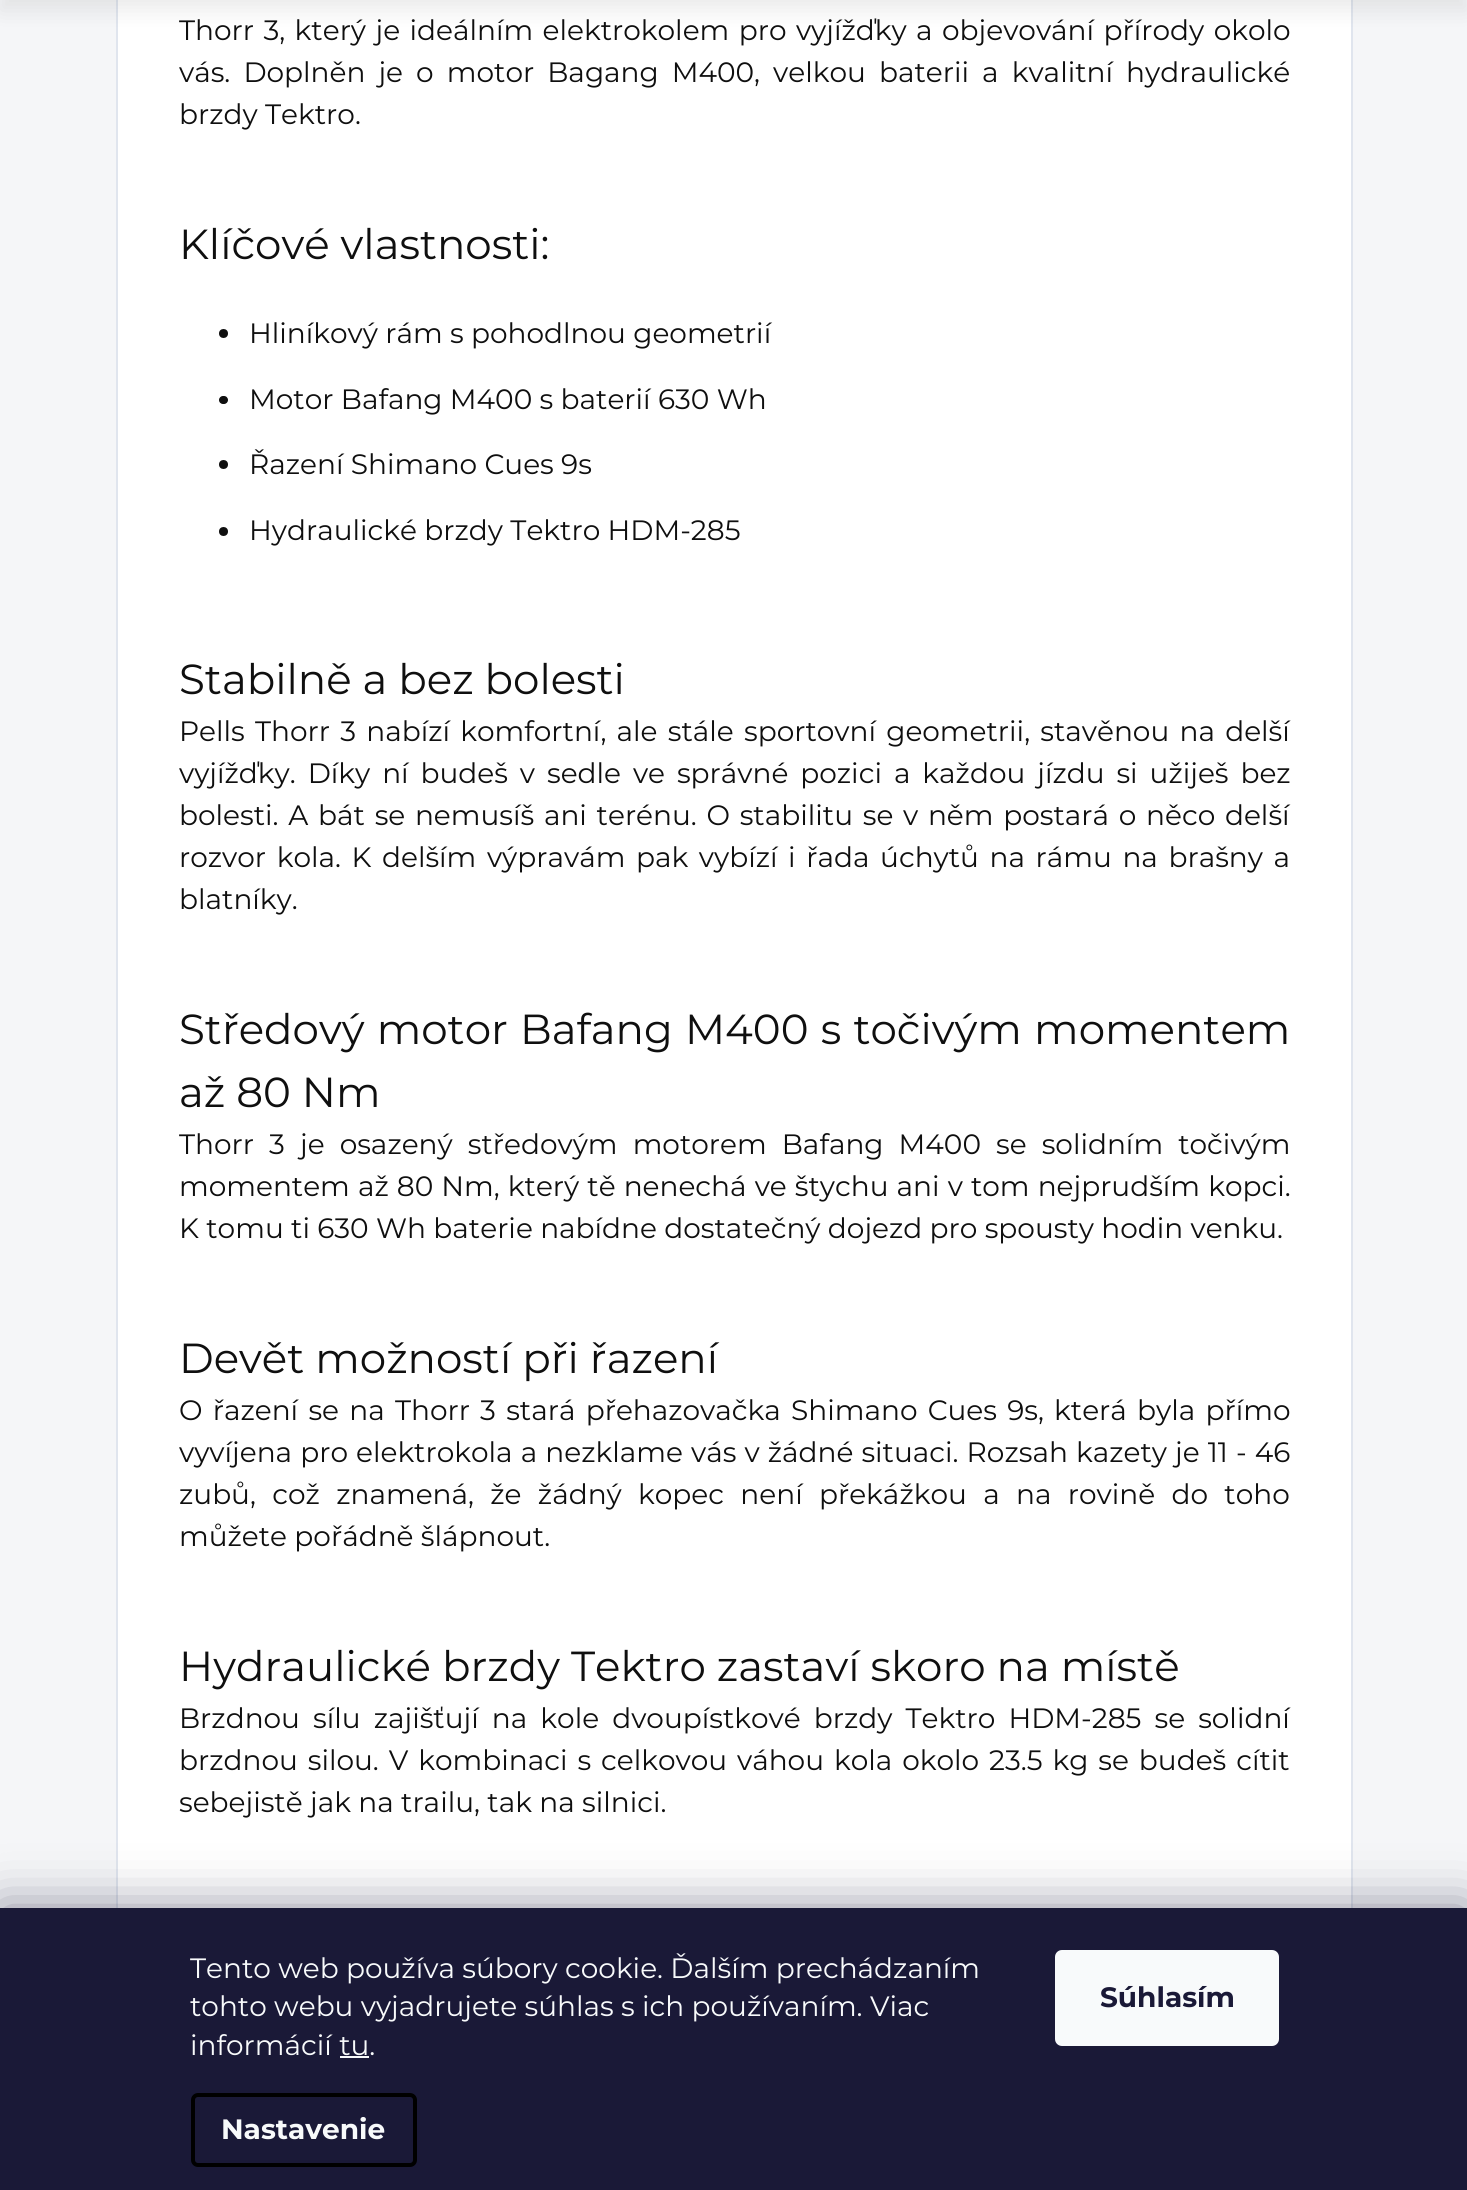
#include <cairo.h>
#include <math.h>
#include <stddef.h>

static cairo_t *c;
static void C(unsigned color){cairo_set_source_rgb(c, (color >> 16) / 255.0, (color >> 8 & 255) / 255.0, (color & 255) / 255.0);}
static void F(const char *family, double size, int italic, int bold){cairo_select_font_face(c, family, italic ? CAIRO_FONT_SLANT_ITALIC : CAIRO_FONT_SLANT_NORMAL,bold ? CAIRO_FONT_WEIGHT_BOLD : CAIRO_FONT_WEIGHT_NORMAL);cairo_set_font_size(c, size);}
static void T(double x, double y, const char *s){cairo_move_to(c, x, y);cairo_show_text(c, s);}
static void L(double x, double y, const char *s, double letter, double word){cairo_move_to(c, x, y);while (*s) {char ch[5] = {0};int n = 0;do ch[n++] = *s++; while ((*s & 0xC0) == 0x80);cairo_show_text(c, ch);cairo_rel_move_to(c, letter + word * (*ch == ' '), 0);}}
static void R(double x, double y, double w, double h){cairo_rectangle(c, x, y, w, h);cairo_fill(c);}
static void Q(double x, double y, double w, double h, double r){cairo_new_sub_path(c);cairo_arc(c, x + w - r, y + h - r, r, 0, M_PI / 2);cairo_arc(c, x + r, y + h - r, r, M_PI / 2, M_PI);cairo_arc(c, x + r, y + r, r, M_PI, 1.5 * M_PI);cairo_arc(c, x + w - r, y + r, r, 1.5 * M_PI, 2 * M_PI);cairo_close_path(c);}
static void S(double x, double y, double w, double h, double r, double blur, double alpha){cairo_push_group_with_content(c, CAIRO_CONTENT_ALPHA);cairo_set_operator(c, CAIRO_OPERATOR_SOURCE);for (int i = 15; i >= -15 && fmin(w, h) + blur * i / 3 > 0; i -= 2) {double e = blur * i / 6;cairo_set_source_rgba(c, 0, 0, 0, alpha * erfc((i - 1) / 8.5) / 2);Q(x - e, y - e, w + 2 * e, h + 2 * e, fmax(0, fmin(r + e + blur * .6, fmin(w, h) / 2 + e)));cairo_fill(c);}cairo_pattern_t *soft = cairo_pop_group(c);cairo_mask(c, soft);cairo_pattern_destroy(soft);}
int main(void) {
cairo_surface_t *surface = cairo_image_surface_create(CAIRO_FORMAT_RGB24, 1467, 2190);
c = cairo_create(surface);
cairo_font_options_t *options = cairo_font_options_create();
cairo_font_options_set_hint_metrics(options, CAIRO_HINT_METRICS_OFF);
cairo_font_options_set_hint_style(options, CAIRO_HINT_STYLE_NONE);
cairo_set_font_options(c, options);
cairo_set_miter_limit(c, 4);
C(0xf5f6f8);
cairo_paint(c);
C(0xffffff);
R(118,0,1233,1908);
cairo_rectangle(c,117,-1,1235,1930);
C(0xe0e5ee);
cairo_stroke(c);
C(0x000000);
S(0,-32,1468,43,0,10.5,.08);
F("Montserrat",28,0,0);
C(0x0f0f0f);
L(179,40,"Thorr 3, který je ideálním elektrokolem pro vyjížďky a objevování přírody okolo",0,2.1);
L(179,82,"vás. Doplněn je o motor Bagang M400, velkou baterii a kvalitní hydraulické",0,5.75);
T(179,124,"brzdy Tektro.");
F("Montserrat",42,0,0);
T(179,259,"Klíčové vlastnosti:");
cairo_new_path(c);
cairo_arc(c,223.5,333.5,4.5,0,2 * M_PI);
cairo_fill(c);
F("Montserrat",28,0,0);
T(249,343,"Hliníkový rám s pohodlnou geometrií");
Q(219,396,9,8,4);
cairo_fill(c);
T(249,409,"Motor Bafang M400 s baterií 630 Wh");
cairo_new_path(c);
cairo_arc(c,223.5,464.5,4.5,0,2 * M_PI);
cairo_fill(c);
T(249,474,"Řazení Shimano Cues 9s");
cairo_new_path(c);
cairo_arc(c,223.5,531.5,4.5,0,2 * M_PI);
cairo_fill(c);
T(249,540,"Hydraulické brzdy Tektro HDM-285");
F("Montserrat",42,0,0);
T(179,694,"Stabilně a bez bolesti");
F("Montserrat",28,0,0);
L(179,741,"Pells Thorr 3 nabízí komfortní, ale stále sportovní geometrii, stavěnou na delší",0,2.9);
L(179,783,"vyjížďky. Díky ní budeš v sedle ve správné pozici a každou jízdu si užiješ bez",0,4.6);
L(179,825,"bolesti. A bát se nemusíš ani terénu. O stabilitu se v něm postará o něco delší",0,2.4);
L(179,867,"rozvor kola. K delším výpravám pak vybízí i řada úchytů na rámu na brašny a",0,3.25);
T(179,909,"blatníky.");
F("Montserrat",42,0,0);
L(179,1044,"Středový motor Bafang M400 s točivým momentem",0,1.25);
T(179,1107,"až 80 Nm");
F("Montserrat",28,0,0);
L(179,1154,"Thorr 3 je osazený středovým motorem Bafang M400 se solidním točivým",0,7.75);
L(179,1196,"momentem až 80 Nm, který tě nenechá ve štychu ani v tom nejprudším kopci.",0,.75);
T(179,1238,"K tomu ti 630 Wh baterie nabídne dostatečný dojezd pro spousty hodin venku.");
F("Montserrat",42,0,0);
T(179,1373,"Devět možností při řazení");
F("Montserrat",28,0,0);
L(179,1420,"O řazení se na Thorr 3 stará přehazovačka Shimano Cues 9s, která byla přímo",0,2.9);
L(179,1462,"vyvíjena pro elektrokola a nezklame vás v žádné situaci. Rozsah kazety je 11 - 46",0,.75);
L(179,1504,"zubů, což znamená, že žádný kopec není překážkou a na rovině do toho",0,9);
T(179,1546,"můžete pořádně šlápnout.");
F("Montserrat",42,0,0);
T(179,1681,"Hydraulické brzdy Tektro zastaví skoro na místě");
F("Montserrat",28,0,0);
L(179,1728,"Brzdnou sílu zajišťují na kole dvoupístkové brzdy Tektro HDM-285 se solidní",0,5.75);
L(179,1770,"brzdnou silou. V kombinaci s celkovou váhou kola okolo 23.5 kg se budeš cítit",0,2.6);
T(179,1812,"sebejistě jak na trailu, tak na silnici.");
C(0x1b1939);
S(0,1908,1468,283,0,26,.5);
C(0x1a1937);
R(0,1908,1467,282);
C(0xf8fafb);
T(190,1978,"Tento web používa súbory cookie. Ďalším prechádzaním");
T(190,2016,"tohto webu vyjadrujete súhlas s ich používaním. Viac");
T(190,2055,"informácií tu.");
R(340,2056,29,2);
Q(193,2095,222,70,5);
C(0x000000);
cairo_set_line_width(c,4);
cairo_stroke(c);
F("Montserrat",28,0,1);
C(0xf8fafb);
T(221,2139,"Nastavenie");
Q(1055,1950,224,96,7);
cairo_fill(c);
C(0x1a1937);
T(1100,2007,"Súhlasím");
cairo_surface_write_to_png(surface, "o.png");
cairo_font_options_destroy(options);
cairo_destroy(c);
cairo_surface_destroy(surface);
return 0;
}
